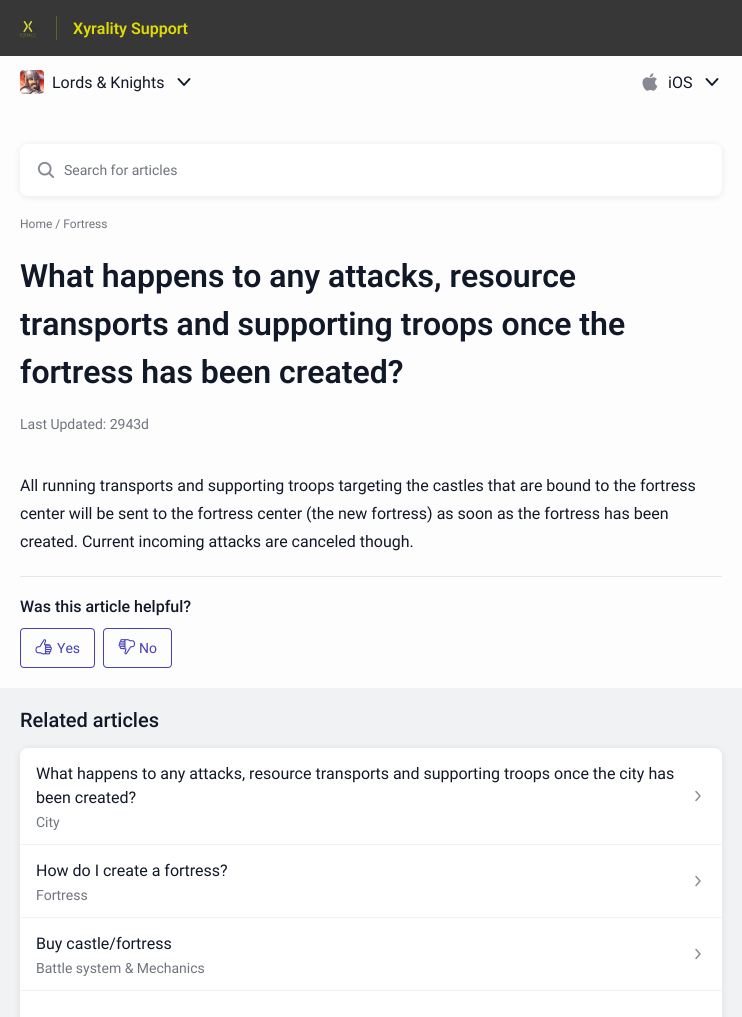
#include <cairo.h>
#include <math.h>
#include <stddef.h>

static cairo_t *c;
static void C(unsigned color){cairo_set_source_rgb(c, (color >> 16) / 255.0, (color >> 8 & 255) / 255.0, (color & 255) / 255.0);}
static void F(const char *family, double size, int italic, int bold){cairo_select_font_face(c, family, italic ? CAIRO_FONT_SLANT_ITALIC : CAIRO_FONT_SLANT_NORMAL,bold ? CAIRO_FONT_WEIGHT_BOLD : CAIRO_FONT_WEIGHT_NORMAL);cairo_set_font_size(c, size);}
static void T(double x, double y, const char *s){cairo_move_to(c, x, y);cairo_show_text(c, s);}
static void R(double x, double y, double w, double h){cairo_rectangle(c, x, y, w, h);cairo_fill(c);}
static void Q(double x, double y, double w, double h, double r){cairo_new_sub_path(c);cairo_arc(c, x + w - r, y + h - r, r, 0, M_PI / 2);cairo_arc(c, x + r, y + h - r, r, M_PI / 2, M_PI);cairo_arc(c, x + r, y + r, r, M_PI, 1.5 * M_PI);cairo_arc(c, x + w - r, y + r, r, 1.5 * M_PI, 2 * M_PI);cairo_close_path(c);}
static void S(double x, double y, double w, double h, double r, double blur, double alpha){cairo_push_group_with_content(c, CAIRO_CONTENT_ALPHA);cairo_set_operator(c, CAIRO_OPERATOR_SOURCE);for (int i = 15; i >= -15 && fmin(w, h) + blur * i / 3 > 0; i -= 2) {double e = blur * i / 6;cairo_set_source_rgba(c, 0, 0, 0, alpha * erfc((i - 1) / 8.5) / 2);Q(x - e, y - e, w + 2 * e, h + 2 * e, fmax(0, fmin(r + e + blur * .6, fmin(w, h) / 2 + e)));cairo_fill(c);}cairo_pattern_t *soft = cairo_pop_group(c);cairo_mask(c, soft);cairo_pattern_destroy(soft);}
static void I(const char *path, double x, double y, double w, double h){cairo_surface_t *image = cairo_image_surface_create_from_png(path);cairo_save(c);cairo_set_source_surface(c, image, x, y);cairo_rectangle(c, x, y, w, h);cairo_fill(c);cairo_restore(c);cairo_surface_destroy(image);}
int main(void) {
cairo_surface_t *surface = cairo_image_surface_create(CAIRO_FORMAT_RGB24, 742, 1017);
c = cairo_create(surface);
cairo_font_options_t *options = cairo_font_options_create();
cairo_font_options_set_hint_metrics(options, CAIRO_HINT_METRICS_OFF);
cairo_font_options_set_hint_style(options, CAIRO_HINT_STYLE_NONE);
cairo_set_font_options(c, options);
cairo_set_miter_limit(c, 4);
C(0xfdfdfd);
cairo_paint(c);
C(0x373737);
R(0,0,742,56);
C(0x616029);
R(56,16,1,24);
I("1.png",20,20,16,18);
F("Roboto SemiBold",16,0,0);
C(0xdfdc00);
T(73,34,"Xyrality Support");
I("2.png",20,70,24,24);
F("Roboto",16,0,0);
C(0x111827);
T(52,88,"Lords & Knights");
cairo_new_path(c);
cairo_move_to(c,178.5,79);
cairo_line_to(c,184,85);
cairo_line_to(c,189.5,79);
cairo_set_line_width(c,1.9);
cairo_set_line_cap(c,CAIRO_LINE_CAP_ROUND);
cairo_set_line_join(c,CAIRO_LINE_JOIN_ROUND);
cairo_stroke(c);
I("3.png",642,73,16,18);
T(668,88,"iOS");
cairo_new_path(c);
cairo_move_to(c,706.5,79);
cairo_line_to(c,712,85);
cairo_line_to(c,717.5,79);
cairo_stroke(c);
C(0xf0f2f4);
R(0,688,742,329);
C(0x000000);
S(20,145,702,52,8,4,.08);
C(0xffffff);
Q(20,144,702,52,8);
cairo_fill(c);
I("4.png",37,161,17,17);
F("Roboto",14,0,0);
C(0x70747d);
T(64,175,"Search for articles");
F("Roboto",12,0,0);
T(20,228,"Home / Fortress");
F("Roboto SemiBold",32,0,0);
C(0x111827);
T(20,287,"What happens to any attacks, resource");
T(20,335,"transports and supporting troops once the");
T(20,383,"fortress has been created?");
F("Roboto",14,0,0);
C(0x70747d);
T(20,429,"Last Updated: 2943d");
C(0xe7e8e9);
R(20,576,702,1);
F("Roboto",16,0,0);
C(0x111827);
T(20,491,"All running transports and supporting troops targeting the castles that are bound to the fortress");
T(20,519,"center will be sent to the fortress center (the new fortress) as soon as the fortress has been");
T(20,547,"created. Current incoming attacks are canceled though.");
F("Roboto Medium",16,0,0);
T(20,612,"Was this article helpful?");
Q(20.5,628.5,74,39,3.5);
C(0x453fb9);
cairo_set_line_width(c,1);
cairo_set_line_cap(c,CAIRO_LINE_CAP_BUTT);
cairo_set_line_join(c,CAIRO_LINE_JOIN_MITER);
cairo_stroke(c);
I("5.png",35,639,17,16);
F("Roboto",14,0,0);
T(57,653,"Yes");
Q(103.5,628.5,68,39,3.5);
cairo_stroke(c);
I("6.png",118,639,17,16);
T(139,653,"No");
F("Roboto Medium",20,0,0);
C(0x111827);
T(20,727,"Related articles");
C(0x000000);
S(20,749,702,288,8,4,.08);
C(0xffffff);
cairo_new_path(c);
cairo_move_to(c,28,748);
cairo_line_to(c,714,748);
cairo_curve_to(c,718.5,748,722,751.5,722,756);
cairo_line_to(c,722,1017);
cairo_line_to(c,20,1017);
cairo_line_to(c,20,756);
cairo_curve_to(c,20,751.5,23.5,748,28,748);
cairo_close_path(c);
cairo_fill(c);
C(0xf3f3f4);
R(20,844,702,1);
F("Roboto",16,0,0);
C(0x111827);
T(36,779,"What happens to any attacks, resource transports and supporting troops once the city has");
T(36,803,"been created?");
F("Roboto",14,0,0);
C(0x70747d);
T(36,827,"City");
cairo_new_path(c);
cairo_move_to(c,696,791.5);
cairo_line_to(c,700,796);
cairo_line_to(c,696,800.5);
C(0x888c93);
cairo_set_line_width(c,1.5);
cairo_set_line_cap(c,CAIRO_LINE_CAP_ROUND);
cairo_set_line_join(c,CAIRO_LINE_JOIN_ROUND);
cairo_stroke(c);
C(0xf3f3f4);
R(20,917,702,1);
F("Roboto",16,0,0);
C(0x111827);
T(36,876,"How do I create a fortress?");
F("Roboto",14,0,0);
C(0x70747d);
T(36,900,"Fortress");
cairo_new_path(c);
cairo_move_to(c,696,876.5);
cairo_line_to(c,700,881);
cairo_line_to(c,696,885.5);
C(0x888c93);
cairo_stroke(c);
C(0xf3f3f4);
R(20,990,702,1);
F("Roboto",16,0,0);
C(0x111827);
T(36,949,"Buy castle/fortress");
F("Roboto",14,0,0);
C(0x70747d);
T(36,973,"Battle system & Mechanics");
cairo_new_path(c);
cairo_move_to(c,696,949.5);
cairo_line_to(c,700,954);
cairo_line_to(c,696,958.5);
C(0x888c93);
cairo_stroke(c);
cairo_surface_write_to_png(surface, "o.png");
cairo_font_options_destroy(options);
cairo_destroy(c);
cairo_surface_destroy(surface);
return 0;
}
